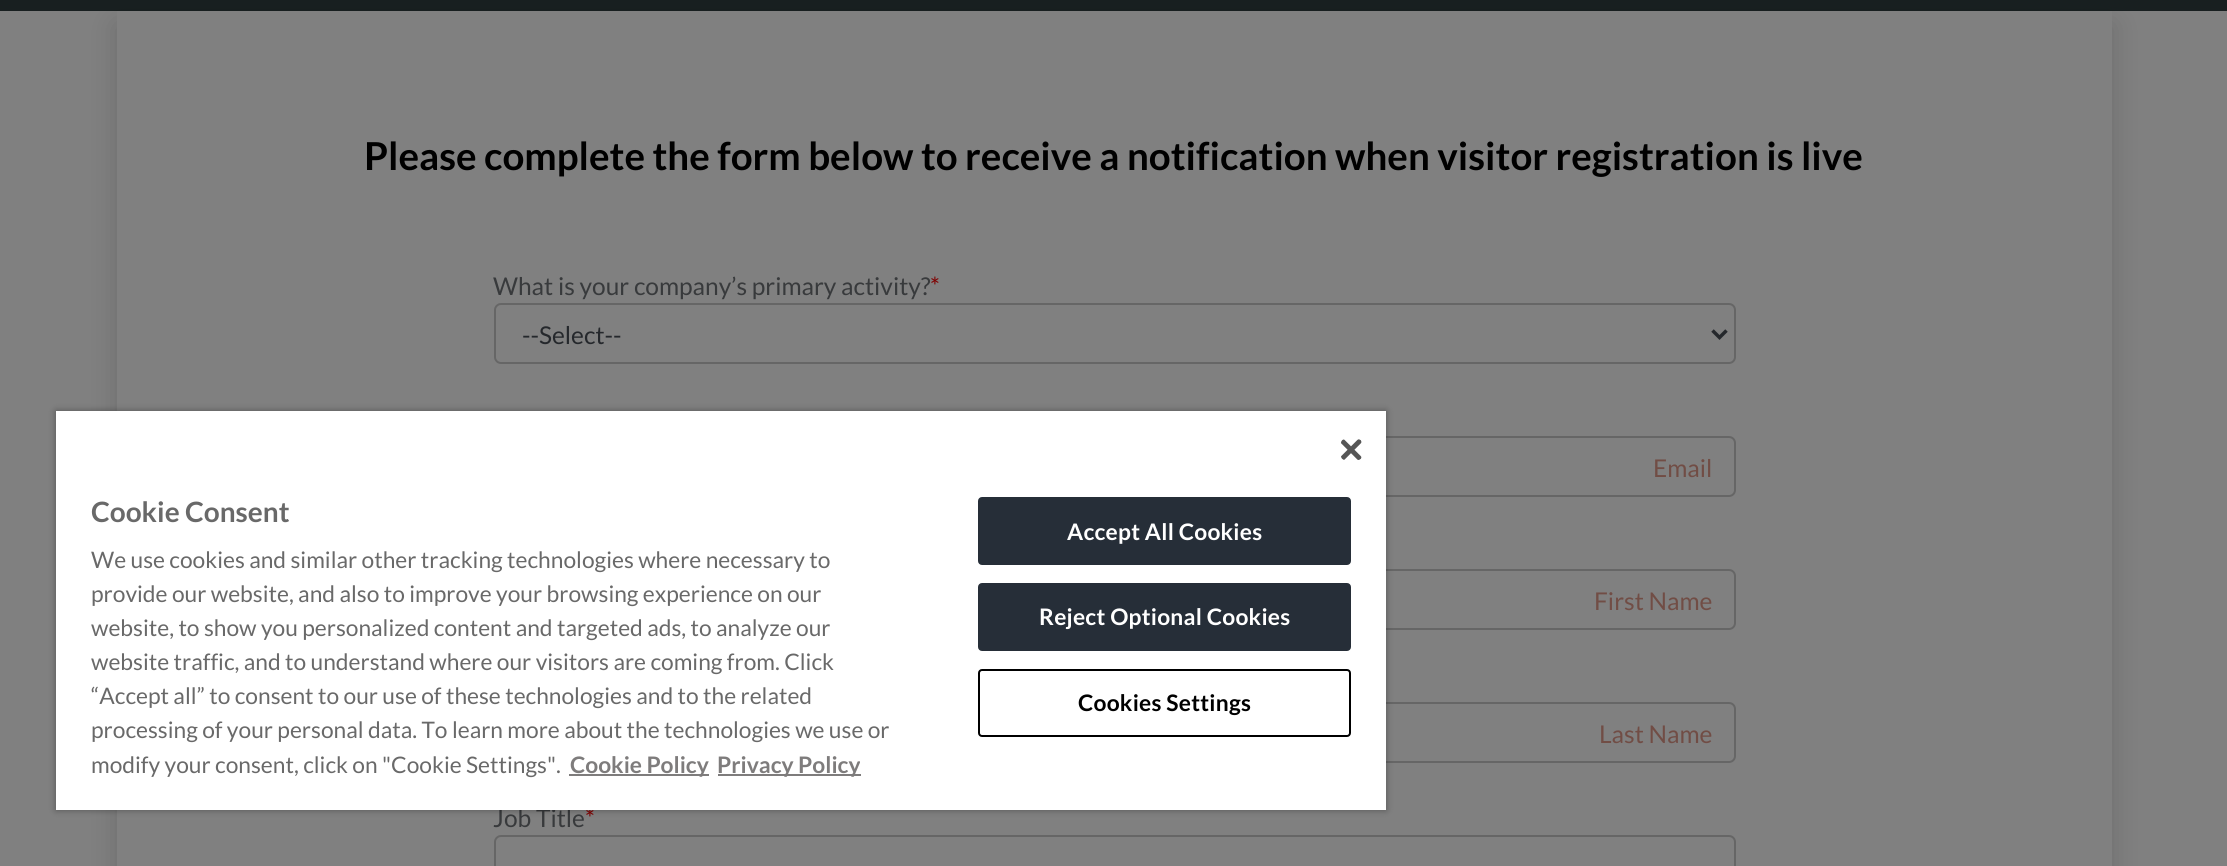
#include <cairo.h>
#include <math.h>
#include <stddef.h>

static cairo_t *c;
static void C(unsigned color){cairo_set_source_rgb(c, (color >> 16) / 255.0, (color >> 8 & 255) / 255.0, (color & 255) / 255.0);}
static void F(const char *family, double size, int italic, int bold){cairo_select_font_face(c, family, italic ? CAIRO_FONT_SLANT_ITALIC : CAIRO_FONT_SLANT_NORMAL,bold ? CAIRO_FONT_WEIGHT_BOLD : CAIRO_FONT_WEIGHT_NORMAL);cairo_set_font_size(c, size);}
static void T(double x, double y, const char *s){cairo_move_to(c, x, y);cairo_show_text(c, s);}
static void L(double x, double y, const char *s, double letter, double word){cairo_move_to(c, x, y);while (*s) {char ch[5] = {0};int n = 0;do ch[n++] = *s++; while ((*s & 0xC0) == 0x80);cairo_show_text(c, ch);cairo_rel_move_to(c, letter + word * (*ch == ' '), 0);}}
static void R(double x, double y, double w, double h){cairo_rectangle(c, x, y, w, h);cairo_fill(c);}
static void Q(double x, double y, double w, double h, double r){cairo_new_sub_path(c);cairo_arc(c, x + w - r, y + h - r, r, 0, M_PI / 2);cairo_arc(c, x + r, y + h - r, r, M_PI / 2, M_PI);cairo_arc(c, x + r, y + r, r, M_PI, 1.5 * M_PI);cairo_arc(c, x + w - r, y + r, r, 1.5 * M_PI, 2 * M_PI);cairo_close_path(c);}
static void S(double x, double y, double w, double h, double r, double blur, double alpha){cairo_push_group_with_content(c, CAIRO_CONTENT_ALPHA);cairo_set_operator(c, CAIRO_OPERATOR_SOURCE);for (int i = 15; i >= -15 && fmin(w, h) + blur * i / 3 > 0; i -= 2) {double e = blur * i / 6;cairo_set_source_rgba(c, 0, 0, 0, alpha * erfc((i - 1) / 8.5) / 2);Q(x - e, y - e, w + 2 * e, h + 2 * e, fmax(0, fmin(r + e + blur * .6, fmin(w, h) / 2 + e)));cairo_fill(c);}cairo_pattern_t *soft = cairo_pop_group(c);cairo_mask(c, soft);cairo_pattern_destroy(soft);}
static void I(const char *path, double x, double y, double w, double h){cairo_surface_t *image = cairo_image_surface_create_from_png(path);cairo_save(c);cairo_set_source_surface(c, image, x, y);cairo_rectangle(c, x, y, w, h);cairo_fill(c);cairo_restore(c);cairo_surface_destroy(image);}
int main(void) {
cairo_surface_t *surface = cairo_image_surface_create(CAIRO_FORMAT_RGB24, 2227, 866);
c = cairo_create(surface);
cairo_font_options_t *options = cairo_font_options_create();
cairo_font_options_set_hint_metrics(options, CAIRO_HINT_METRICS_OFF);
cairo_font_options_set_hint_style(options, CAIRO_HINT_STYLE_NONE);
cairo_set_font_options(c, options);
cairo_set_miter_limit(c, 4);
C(0x808080);
cairo_paint(c);
C(0x181f20);
R(0,0,2227,11);
C(0x000000);
S(117,25,1995,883,0,14,.15);
C(0x808080);
R(117,11,1995,855);
F("Lato",38.5,0,1);
C(0x000000);
T(364,170,"Please complete the form below to receive a notification when visitor registration is live");
F("Lato",24.5,0,0);
C(0x383a3c);
T(493,295,"What is your company’s primary activity?");
C(0x800000);
T(930,295,"*");
Q(495,304,1240,59,6);
C(0x666666);
cairo_stroke(c);
cairo_new_path(c);
cairo_move_to(c,1712.5,330.5);
cairo_line_to(c,1719.5,337.5);
cairo_line_to(c,1726.5,330.5);
C(0x25282c);
cairo_set_line_width(c,3.5);
cairo_stroke(c);
T(522,344,"--Select--");
Q(495,437,1240,59,6);
C(0x666666);
cairo_set_line_width(c,2);
cairo_stroke(c);
C(0x714d45);
T(1653,477,"Email");
Q(495,570,1240,59,6);
C(0x666666);
cairo_stroke(c);
C(0x714d45);
T(1594,610,"First Name");
Q(495,703,1240,59,6);
C(0x666666);
cairo_stroke(c);
C(0x714d45);
T(1599,743,"Last Name");
C(0x383a3c);
T(493,827,"Job Title");
C(0x800000);
T(585,827,"*");
Q(495,836,1240,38,6);
C(0x666666);
cairo_stroke(c);
C(0x000000);
S(56,411,1330,399,0,3.5,.35);
C(0xffffff);
R(56,411,1330,399);
I("1.png",1341,439,21,21);
F("Lato",28,0,1);
C(0x696969);
T(91,522,"Cookie Consent");
F("Lato",22.75,0,0);
T(91,568,"We use cookies and similar other tracking technologies where necessary to");
T(91,602,"provide our website, and also to improve your browsing experience on our");
T(91,636,"website, to show you personalized content and targeted ads, to analyze our");
T(91,670,"website traffic, and to understand where our visitors are coming from. Click");
T(91,704,"“Accept all” to consent to our use of these technologies and to the related");
T(91,738,"processing of your personal data. To learn more about the technologies we use or");
T(91,773,"modify your consent, click on \"Cookie Settings\".");
C(0x7e7c7c);
R(569,774,140,2);
F("Lato",22.75,0,1);
T(570,773,"Cookie Policy");
R(718,774,143,2);
T(717,773,"Privacy Policy");
C(0x262e38);
Q(979,498,371,66,3);
cairo_fill_preserve(c);
cairo_stroke(c);
C(0xffffff);
L(1067,540,"Accept All Cookies",.25,0);
C(0x262e38);
Q(979,584,371,66,3);
cairo_fill_preserve(c);
cairo_stroke(c);
C(0xffffff);
L(1039,625,"Reject Optional Cookies",.25,0);
Q(979,670,371,66,3);
C(0x000000);
cairo_stroke(c);
L(1078,711,"Cookies Settings",.25,0);
cairo_surface_write_to_png(surface, "o.png");
cairo_font_options_destroy(options);
cairo_destroy(c);
cairo_surface_destroy(surface);
return 0;
}
